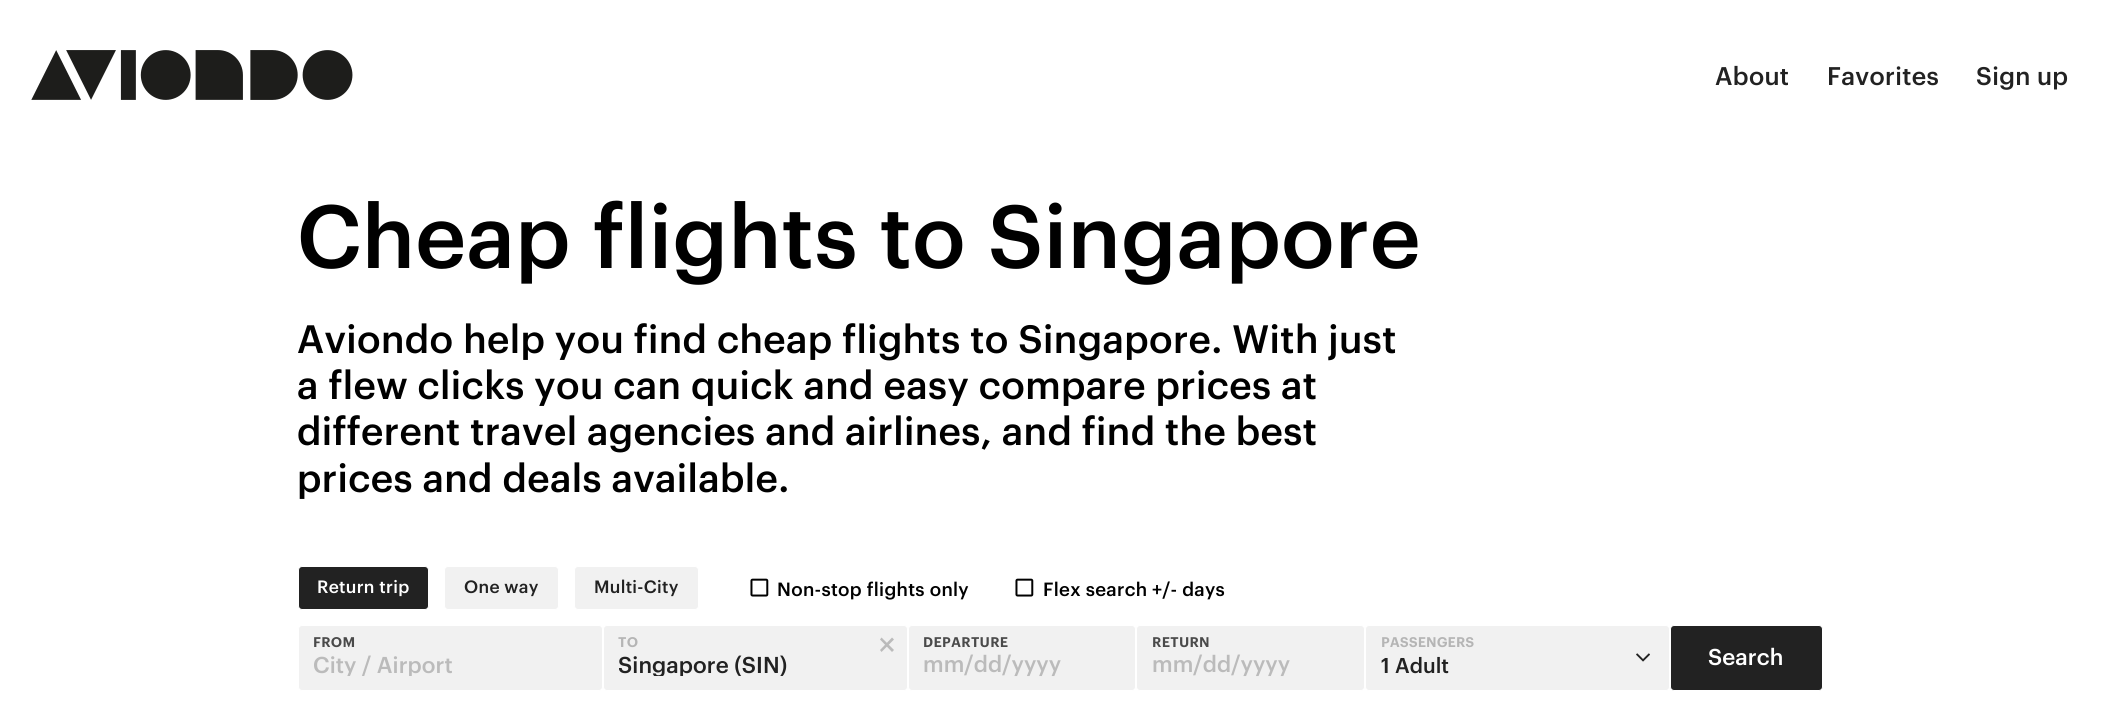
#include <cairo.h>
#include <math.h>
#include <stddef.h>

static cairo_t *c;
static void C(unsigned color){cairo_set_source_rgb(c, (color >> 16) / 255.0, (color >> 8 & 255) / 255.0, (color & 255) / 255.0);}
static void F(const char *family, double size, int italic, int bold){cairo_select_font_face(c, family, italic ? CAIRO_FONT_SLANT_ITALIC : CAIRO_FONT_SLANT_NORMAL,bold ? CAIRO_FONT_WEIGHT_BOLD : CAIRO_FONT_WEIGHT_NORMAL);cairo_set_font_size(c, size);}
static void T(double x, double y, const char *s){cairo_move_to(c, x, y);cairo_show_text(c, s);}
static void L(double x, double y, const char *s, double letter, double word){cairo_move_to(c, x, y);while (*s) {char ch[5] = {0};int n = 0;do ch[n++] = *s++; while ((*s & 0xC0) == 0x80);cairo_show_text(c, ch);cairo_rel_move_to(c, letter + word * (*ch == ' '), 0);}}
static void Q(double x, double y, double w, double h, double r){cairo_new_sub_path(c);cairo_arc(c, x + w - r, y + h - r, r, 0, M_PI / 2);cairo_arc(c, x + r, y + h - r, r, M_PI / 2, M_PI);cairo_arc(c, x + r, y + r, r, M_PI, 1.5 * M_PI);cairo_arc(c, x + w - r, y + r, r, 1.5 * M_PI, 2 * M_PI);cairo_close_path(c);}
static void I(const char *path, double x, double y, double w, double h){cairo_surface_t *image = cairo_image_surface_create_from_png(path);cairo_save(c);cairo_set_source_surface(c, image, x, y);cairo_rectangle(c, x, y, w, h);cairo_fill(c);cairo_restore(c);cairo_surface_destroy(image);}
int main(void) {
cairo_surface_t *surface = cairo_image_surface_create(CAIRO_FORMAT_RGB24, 2118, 701);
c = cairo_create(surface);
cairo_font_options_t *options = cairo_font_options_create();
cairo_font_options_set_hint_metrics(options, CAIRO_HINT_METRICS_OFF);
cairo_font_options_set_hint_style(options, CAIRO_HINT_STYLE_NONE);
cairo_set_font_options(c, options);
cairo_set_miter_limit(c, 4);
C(0xffffff);
cairo_paint(c);
I("1.png",31,50,322,50);
F("Graphik Medium",25,0,0);
C(0x222222);
L(1715,85,"About",.25,0);
L(1827,85,"Favorites",.25,0);
L(1976,85,"Sign up",.25,0);
F("Graphik Medium",87.5,0,0);
C(0x000000);
L(297,268,"Cheap flights to Singapore",.25,.5);
F("Graphik Medium",38.75,0,0);
L(297,353,"Aviondo help you find cheap flights to Singapore. With just",.25,0);
L(297,399,"a flew clicks you can quick and easy compare prices at",.25,0);
L(297,445,"different travel agencies and airlines, and find the best",.25,0);
L(297,492,"prices and deals available.",.25,0);
C(0x222222);
Q(298.5,566.5,130,43,3.5);
cairo_fill_preserve(c);
C(0xffffff);
cairo_set_line_width(c,1);
cairo_stroke(c);
F("Graphik Medium",17.5,0,0);
L(317,593,"Return trip",.25,0);
C(0xf1f1f1);
Q(444.5,566.5,114,43,3.5);
cairo_fill_preserve(c);
C(0xffffff);
cairo_stroke(c);
C(0x222222);
L(464,593,"One way",.25,0);
C(0xf1f1f1);
Q(574.5,566.5,124,43,3.5);
cairo_fill_preserve(c);
C(0xffffff);
cairo_stroke(c);
C(0x222222);
L(594,593,"Multi-City",.25,0);
I("2.png",750,578,19,19);
F("Graphik Medium",18.75,0,0);
C(0x000000);
L(777,596,"Non-stop flights only",.25,0);
I("2.png",1015,578,19,19);
L(1043,596,"Flex search +/- days",.25,0);
C(0xf1f1f1);
Q(1365.5,625.5,304,65,3.5);
cairo_fill_preserve(c);
C(0xffffff);
cairo_stroke(c);
F("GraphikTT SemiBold",13.75,0,0);
C(0xb5b5b5);
T(1381,647,"PASSENGERS");
F("Graphik Medium",21,0,0);
C(0x222222);
T(1381,673,"1 Adult");
I("3.png",1636,653,14,9);
Q(1670.5,625.5,152,65,3.5);
cairo_fill_preserve(c);
C(0xffffff);
cairo_stroke(c);
F("Graphik Medium",22.5,0,0);
T(1708,665,"Search");
C(0xf1f1f1);
Q(298.5,625.5,304,65,3.5);
cairo_fill_preserve(c);
C(0xffffff);
cairo_stroke(c);
F("GraphikTT SemiBold",13.75,0,0);
C(0x4a4a4a);
L(313,647,"FROM",.25,0);
cairo_save(c);
cairo_rectangle(c,314,654,272,22);
cairo_clip(c);
F("Graphik Medium",22.5,0,0);
C(0xbbbbbb);
T(313,673,"City / Airport");
cairo_restore(c);
C(0xf1f1f1);
Q(603.5,625.5,304,65,3.5);
cairo_fill_preserve(c);
C(0xffffff);
cairo_stroke(c);
C(0xb5b5b5);
L(618,647,"TO",.25,0);
C(0xbbbbbb);
cairo_new_path(c);
cairo_move_to(c,892,637.5);
cairo_line_to(c,894,639.5);
cairo_line_to(c,881.5,652);
cairo_line_to(c,880,650);
cairo_close_path(c);
cairo_fill(c);
cairo_new_path(c);
cairo_move_to(c,880,639.5);
cairo_line_to(c,881.5,637.5);
cairo_line_to(c,894,650);
cairo_line_to(c,892,652);
cairo_close_path(c);
cairo_fill(c);
cairo_save(c);
cairo_rectangle(c,619,654,272,22);
cairo_clip(c);
F("Graphik Medium",22.5,0,0);
C(0x222222);
T(618,673,"Singapore (SIN)");
cairo_restore(c);
C(0xf1f1f1);
Q(908.5,625.5,227,65,3.5);
cairo_fill_preserve(c);
C(0xffffff);
cairo_stroke(c);
C(0x4a4a4a);
L(923,647,"DEPARTURE",.25,0);
F("Graphik Medium",22.5,0,0);
C(0xbbbbbb);
T(923,672,"mm/dd/yyyy");
C(0xf1f1f1);
Q(1136.5,625.5,228,65,3.5);
cairo_fill_preserve(c);
C(0xffffff);
cairo_stroke(c);
F("GraphikTT SemiBold",13.75,0,0);
C(0x4a4a4a);
L(1152,647,"RETURN",.25,0);
F("Graphik Medium",22.5,0,0);
C(0xbbbbbb);
T(1152,672,"mm/dd/yyyy");
cairo_surface_write_to_png(surface, "o.png");
cairo_font_options_destroy(options);
cairo_destroy(c);
cairo_surface_destroy(surface);
return 0;
}
